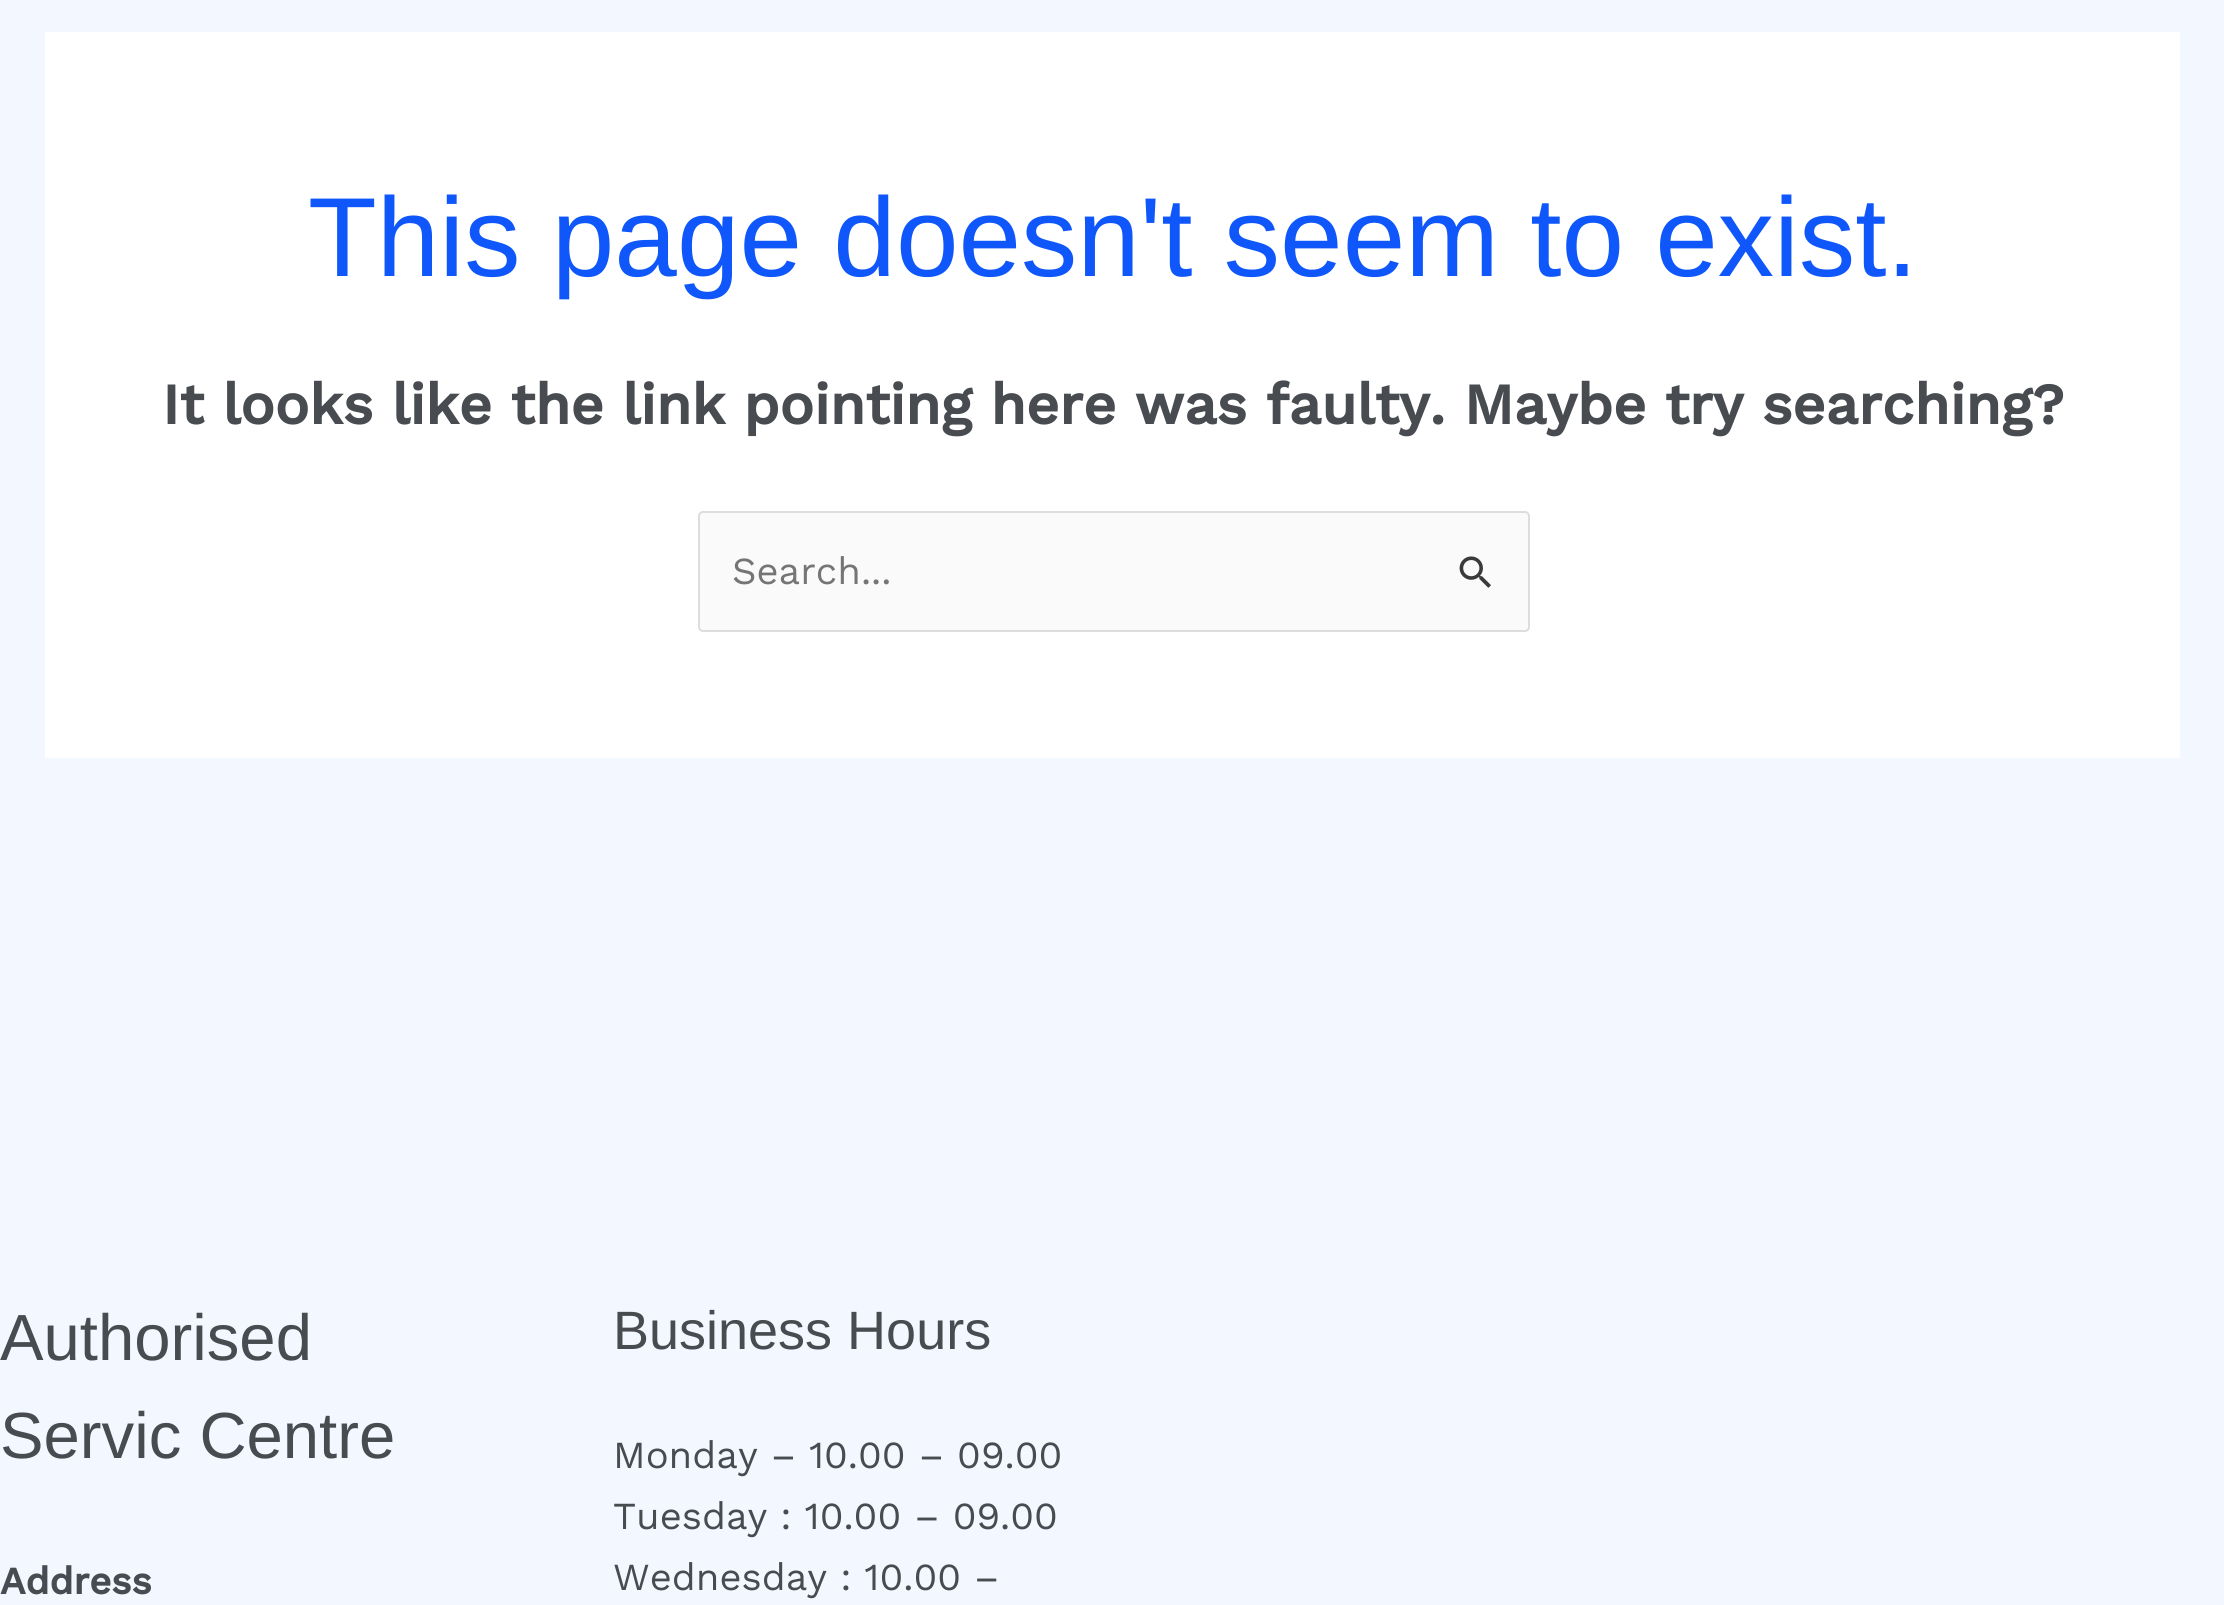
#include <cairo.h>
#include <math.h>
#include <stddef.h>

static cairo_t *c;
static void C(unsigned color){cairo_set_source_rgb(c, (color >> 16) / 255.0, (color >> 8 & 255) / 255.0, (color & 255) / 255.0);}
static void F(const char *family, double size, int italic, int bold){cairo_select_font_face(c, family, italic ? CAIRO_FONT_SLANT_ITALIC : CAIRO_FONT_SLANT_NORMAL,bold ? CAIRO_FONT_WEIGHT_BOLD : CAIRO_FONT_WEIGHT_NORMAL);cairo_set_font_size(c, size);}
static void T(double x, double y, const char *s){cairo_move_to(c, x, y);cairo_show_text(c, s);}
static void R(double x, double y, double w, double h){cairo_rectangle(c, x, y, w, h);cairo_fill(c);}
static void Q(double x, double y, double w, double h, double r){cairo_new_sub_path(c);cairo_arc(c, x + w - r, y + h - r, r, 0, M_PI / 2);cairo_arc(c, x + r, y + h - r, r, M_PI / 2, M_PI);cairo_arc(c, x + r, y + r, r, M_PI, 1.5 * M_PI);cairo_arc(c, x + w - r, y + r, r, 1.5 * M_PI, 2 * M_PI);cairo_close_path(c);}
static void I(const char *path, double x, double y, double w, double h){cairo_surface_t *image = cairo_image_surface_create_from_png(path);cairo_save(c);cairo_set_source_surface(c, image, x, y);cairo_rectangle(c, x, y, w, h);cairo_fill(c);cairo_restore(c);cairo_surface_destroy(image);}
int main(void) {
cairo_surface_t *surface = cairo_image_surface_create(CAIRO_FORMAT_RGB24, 2224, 1605);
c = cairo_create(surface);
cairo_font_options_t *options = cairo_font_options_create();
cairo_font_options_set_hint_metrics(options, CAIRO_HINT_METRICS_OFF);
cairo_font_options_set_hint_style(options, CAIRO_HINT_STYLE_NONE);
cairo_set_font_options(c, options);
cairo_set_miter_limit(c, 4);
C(0xf3f7ff);
cairo_paint(c);
C(0xffffff);
R(45,32,2135,726);
F("Liberation Sans",112.5,0,0);
C(0x0f57fb);
T(308,276,"This page doesn't seem to exist.");
F("Work Sans",57.4,0,1);
C(0x484c50);
T(162,424,"It looks like the link pointing here was faulty. Maybe try searching?");
C(0xfafafa);
Q(699,512,830,119,4);
cairo_fill_preserve(c);
C(0xdddddd);
cairo_stroke(c);
F("Work Sans",38.25,0,0);
C(0x757575);
T(732,584,"Search...");
I("1.png",1459,556,32,32);
F("Liberation Sans",65.25,0,0);
C(0x484c50);
T(0,1360,"Authorised");
T(0,1458,"Servic Centre");
F("Work Sans",38.25,0,1);
T(0,1594,"Address");
F("Liberation Sans",54,0,0);
T(613,1349,"Business Hours");
F("Work Sans",38.25,0,0);
T(613,1468,"Monday – 10.00 – 09.00");
T(613,1529,"Tuesday : 10.00 – 09.00");
T(613,1590,"Wednesday : 10.00 –");
cairo_surface_write_to_png(surface, "o.png");
cairo_font_options_destroy(options);
cairo_destroy(c);
cairo_surface_destroy(surface);
return 0;
}
